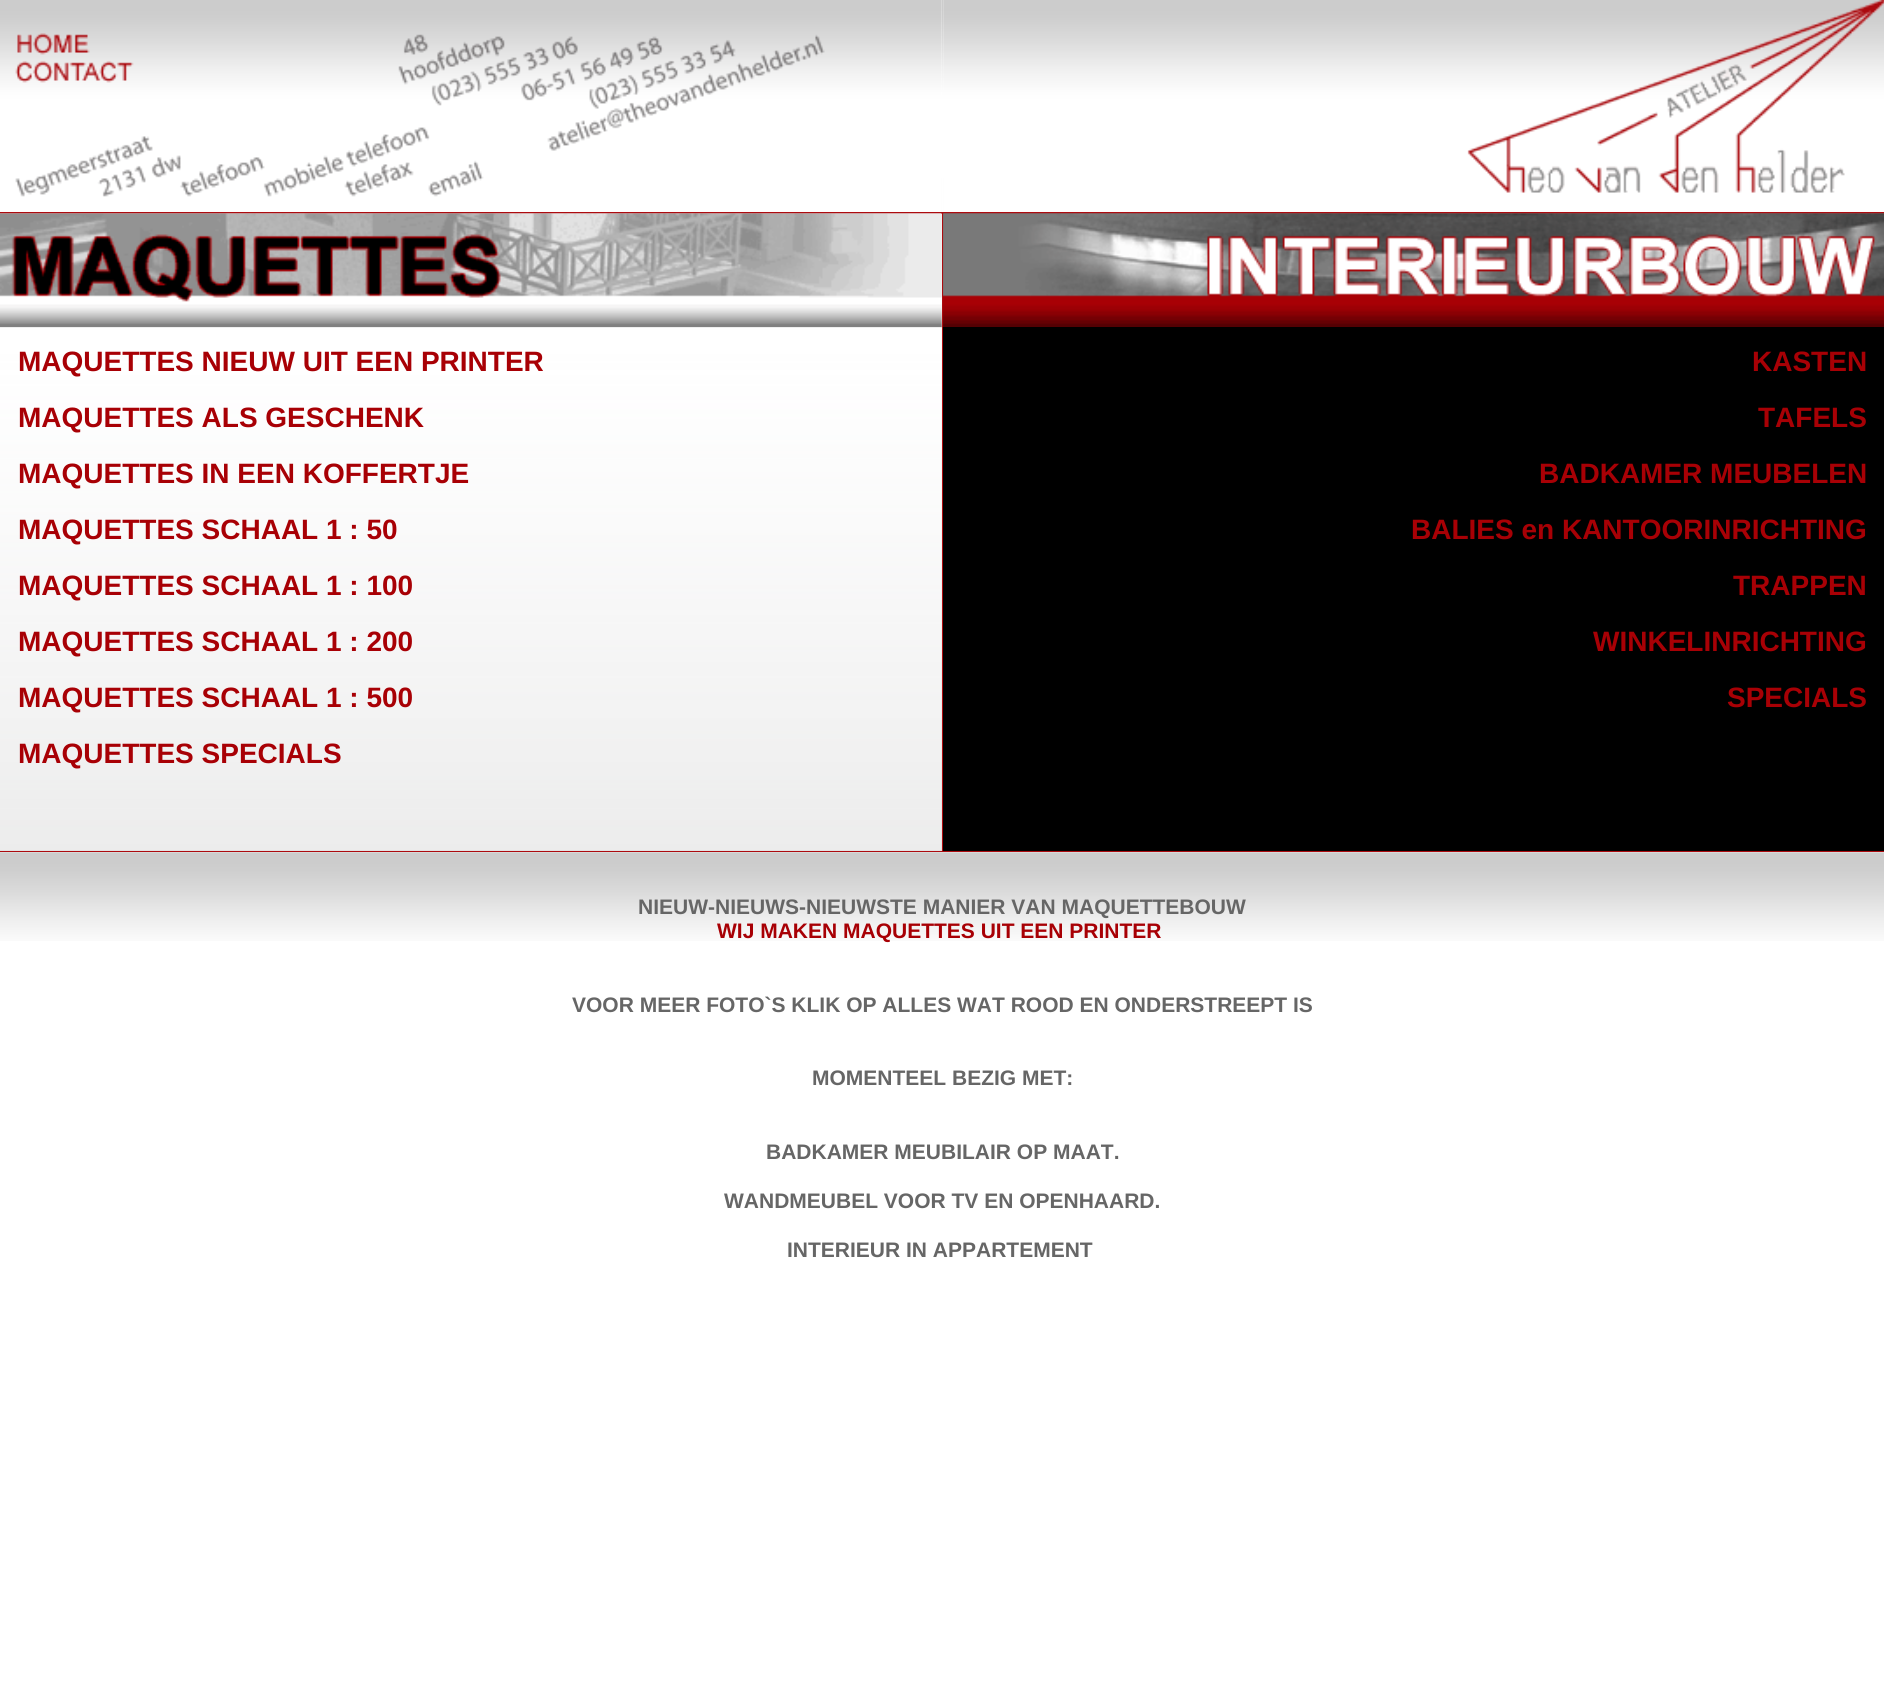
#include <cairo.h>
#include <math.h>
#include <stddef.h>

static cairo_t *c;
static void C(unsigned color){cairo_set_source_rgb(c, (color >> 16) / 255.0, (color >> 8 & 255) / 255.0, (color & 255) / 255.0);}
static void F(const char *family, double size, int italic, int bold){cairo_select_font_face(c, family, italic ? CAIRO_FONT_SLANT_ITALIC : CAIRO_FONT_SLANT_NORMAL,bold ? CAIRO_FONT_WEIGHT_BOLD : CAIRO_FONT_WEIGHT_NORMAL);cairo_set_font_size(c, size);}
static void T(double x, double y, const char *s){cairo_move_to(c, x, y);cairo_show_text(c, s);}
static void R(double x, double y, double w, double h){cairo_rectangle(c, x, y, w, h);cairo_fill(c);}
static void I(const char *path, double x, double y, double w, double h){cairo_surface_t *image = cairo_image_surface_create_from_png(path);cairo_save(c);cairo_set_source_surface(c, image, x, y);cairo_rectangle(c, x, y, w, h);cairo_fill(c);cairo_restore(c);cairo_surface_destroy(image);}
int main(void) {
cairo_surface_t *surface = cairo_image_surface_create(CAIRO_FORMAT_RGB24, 1884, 1703);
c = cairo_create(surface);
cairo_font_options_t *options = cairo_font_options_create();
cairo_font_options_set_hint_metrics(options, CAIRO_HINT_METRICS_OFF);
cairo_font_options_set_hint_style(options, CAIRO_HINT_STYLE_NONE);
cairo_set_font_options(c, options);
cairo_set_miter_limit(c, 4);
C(0xffffff);
cairo_paint(c);
I("1.png",0,178,1884,673);
I("2.png",0,0,942,212);
I("3.png",15,33,810,164);
I("4.png",941,0,3,212);
I("5.png",943,0,941,212);
I("6.png",1467,0,417,193);
C(0xac0b0f);
R(0,212,1884,2);
I("7.png",0,213,942,115);
I("8.png",0,213,942,115);
R(942,214,2,113);
I("9.png",943,213,941,114);
I("10.png",943,213,941,114);
I("11.png",0,327,942,524);
F("Liberation Sans",28,0,1);
C(0xa80005);
T(18,371,"MAQUETTES NIEUW UIT EEN PRINTER");
T(18,427,"MAQUETTES ALS GESCHENK");
T(18,483,"MAQUETTES IN EEN KOFFERTJE");
T(18,539,"MAQUETTES SCHAAL 1 : 50");
T(18,595,"MAQUETTES SCHAAL 1 : 100");
T(18,651,"MAQUETTES SCHAAL 1 : 200");
T(18,707,"MAQUETTES SCHAAL 1 : 500");
T(18,763,"MAQUETTES SPECIALS");
C(0xac0b0f);
R(942,327,1,524);
C(0x000000);
R(943,327,941,524);
C(0xa80005);
T(1752,371,"KASTEN");
T(1758,427,"TAFELS");
T(1539,483,"BADKAMER MEUBELEN");
T(1411,539,"BALIES en KANTOORINRICHTING");
T(1733,595,"TRAPPEN");
T(1593,651,"WINKELINRICHTING");
T(1727,707,"SPECIALS");
C(0xac0b0f);
R(0,851,1884,1);
I("12.png",0,852,1884,89);
F("Liberation Sans",21,0,1);
C(0x666666);
T(638,914,"NIEUW-NIEUWS-NIEUWSTE MANIER VAN MAQUETTEBOUW");
C(0xa80005);
T(717,938,"WIJ MAKEN MAQUETTES UIT EEN PRINTER");
C(0x666666);
T(572,1012,"VOOR MEER FOTO`S KLIK OP ALLES WAT ROOD EN ONDERSTREEPT IS");
T(812,1085,"MOMENTEEL BEZIG MET:");
T(766,1159,"BADKAMER MEUBILAIR OP MAAT.");
T(724,1208,"WANDMEUBEL VOOR TV EN OPENHAARD.");
T(787,1257,"INTERIEUR IN APPARTEMENT");
cairo_surface_write_to_png(surface, "o.png");
cairo_font_options_destroy(options);
cairo_destroy(c);
cairo_surface_destroy(surface);
return 0;
}
